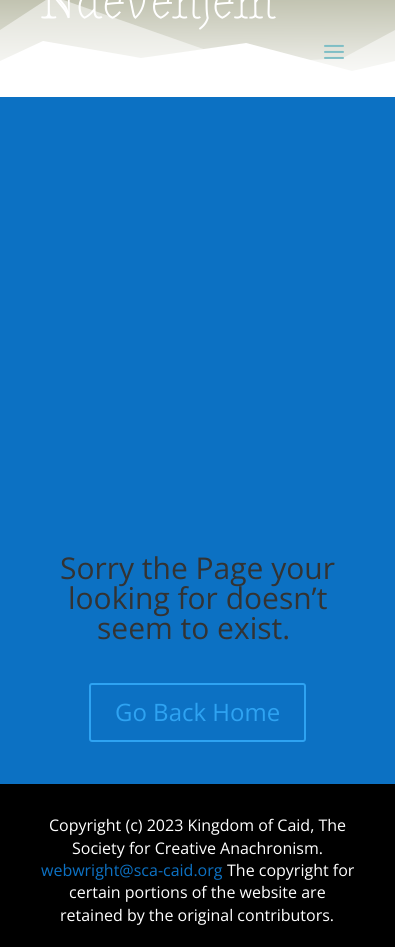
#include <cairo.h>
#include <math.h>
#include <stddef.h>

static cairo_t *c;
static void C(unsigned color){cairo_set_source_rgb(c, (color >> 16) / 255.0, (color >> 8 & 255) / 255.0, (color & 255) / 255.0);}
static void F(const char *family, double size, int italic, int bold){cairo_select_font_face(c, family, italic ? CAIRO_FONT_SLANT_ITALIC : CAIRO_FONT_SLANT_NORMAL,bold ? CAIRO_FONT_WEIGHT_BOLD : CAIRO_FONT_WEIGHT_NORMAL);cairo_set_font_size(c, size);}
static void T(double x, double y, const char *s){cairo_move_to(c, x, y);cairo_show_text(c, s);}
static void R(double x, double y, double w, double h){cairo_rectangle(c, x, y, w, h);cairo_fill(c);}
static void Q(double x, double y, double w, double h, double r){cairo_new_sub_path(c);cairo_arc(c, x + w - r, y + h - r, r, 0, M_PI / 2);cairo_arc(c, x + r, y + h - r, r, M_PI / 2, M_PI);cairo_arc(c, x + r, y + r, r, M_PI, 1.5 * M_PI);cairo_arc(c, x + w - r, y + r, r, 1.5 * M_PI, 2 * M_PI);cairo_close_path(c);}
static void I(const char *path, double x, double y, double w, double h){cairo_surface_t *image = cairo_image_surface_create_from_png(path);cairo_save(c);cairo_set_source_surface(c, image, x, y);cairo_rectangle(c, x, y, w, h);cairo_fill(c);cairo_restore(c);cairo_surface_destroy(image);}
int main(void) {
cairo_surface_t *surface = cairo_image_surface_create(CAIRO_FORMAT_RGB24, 395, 947);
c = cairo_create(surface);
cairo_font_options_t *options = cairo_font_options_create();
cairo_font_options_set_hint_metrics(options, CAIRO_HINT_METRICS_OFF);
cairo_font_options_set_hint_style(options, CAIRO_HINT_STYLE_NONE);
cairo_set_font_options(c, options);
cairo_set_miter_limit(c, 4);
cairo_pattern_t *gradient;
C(0xffffff);
cairo_paint(c);
gradient = cairo_pattern_create_linear(197,-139,198,96);
cairo_pattern_add_color_stop_rgba(gradient,0,0.412,0.427,0.251,1);
cairo_pattern_add_color_stop_rgba(gradient,1,1,1,1,1);
cairo_set_source(c,gradient);
cairo_pattern_destroy(gradient);
R(0,0,395,71);
cairo_set_source_rgba(c,1,1,1,0.5);
cairo_new_path(c);
cairo_move_to(c,0,30);
cairo_line_to(c,52,-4);
cairo_line_to(c,246,64);
cairo_line_to(c,343,58);
cairo_line_to(c,395,30);
cairo_line_to(c,395,96);
cairo_line_to(c,0,96);
cairo_close_path(c);
cairo_fill(c);
C(0xffffff);
cairo_new_path(c);
cairo_move_to(c,0,61);
cairo_line_to(c,43,41);
cairo_line_to(c,141,58);
cairo_line_to(c,246,43);
cairo_line_to(c,352,71);
cairo_line_to(c,395,61);
cairo_line_to(c,395,96);
cairo_line_to(c,0,96);
cairo_close_path(c);
cairo_fill(c);
F("Almendra Display",50,0,1);
T(40,18,"Naevehjem");
I("1.png",324,44,20,15);
C(0x0c71c3);
R(0,97,395,687);
F("Open Sans",30,0,0);
C(0x333333);
T(60,579,"Sorry the Page your");
T(68,609,"looking for doesn’t");
T(97,639,"seem to exist.");
Q(90,684,215,57,2);
C(0x2ea3f2);
cairo_stroke(c);
F("Open Sans",24,0,0);
T(115,721,"Go Back Home");
C(0x000000);
R(0,784,395,163);
F("Open Sans",16,0,0);
C(0xffffff);
T(49,831,"Copyright (c) 2023 Kingdom of Caid, The");
T(72,854,"Society for Creative Anachronism.");
C(0x0c71c3);
T(41,876,"webwright@sca-caid.org");
C(0xffffff);
T(227,876,"The copyright for");
T(69,898,"certain portions of the website are");
T(60,921,"retained by the original contributors.");
cairo_surface_write_to_png(surface, "o.png");
cairo_font_options_destroy(options);
cairo_destroy(c);
cairo_surface_destroy(surface);
return 0;
}
